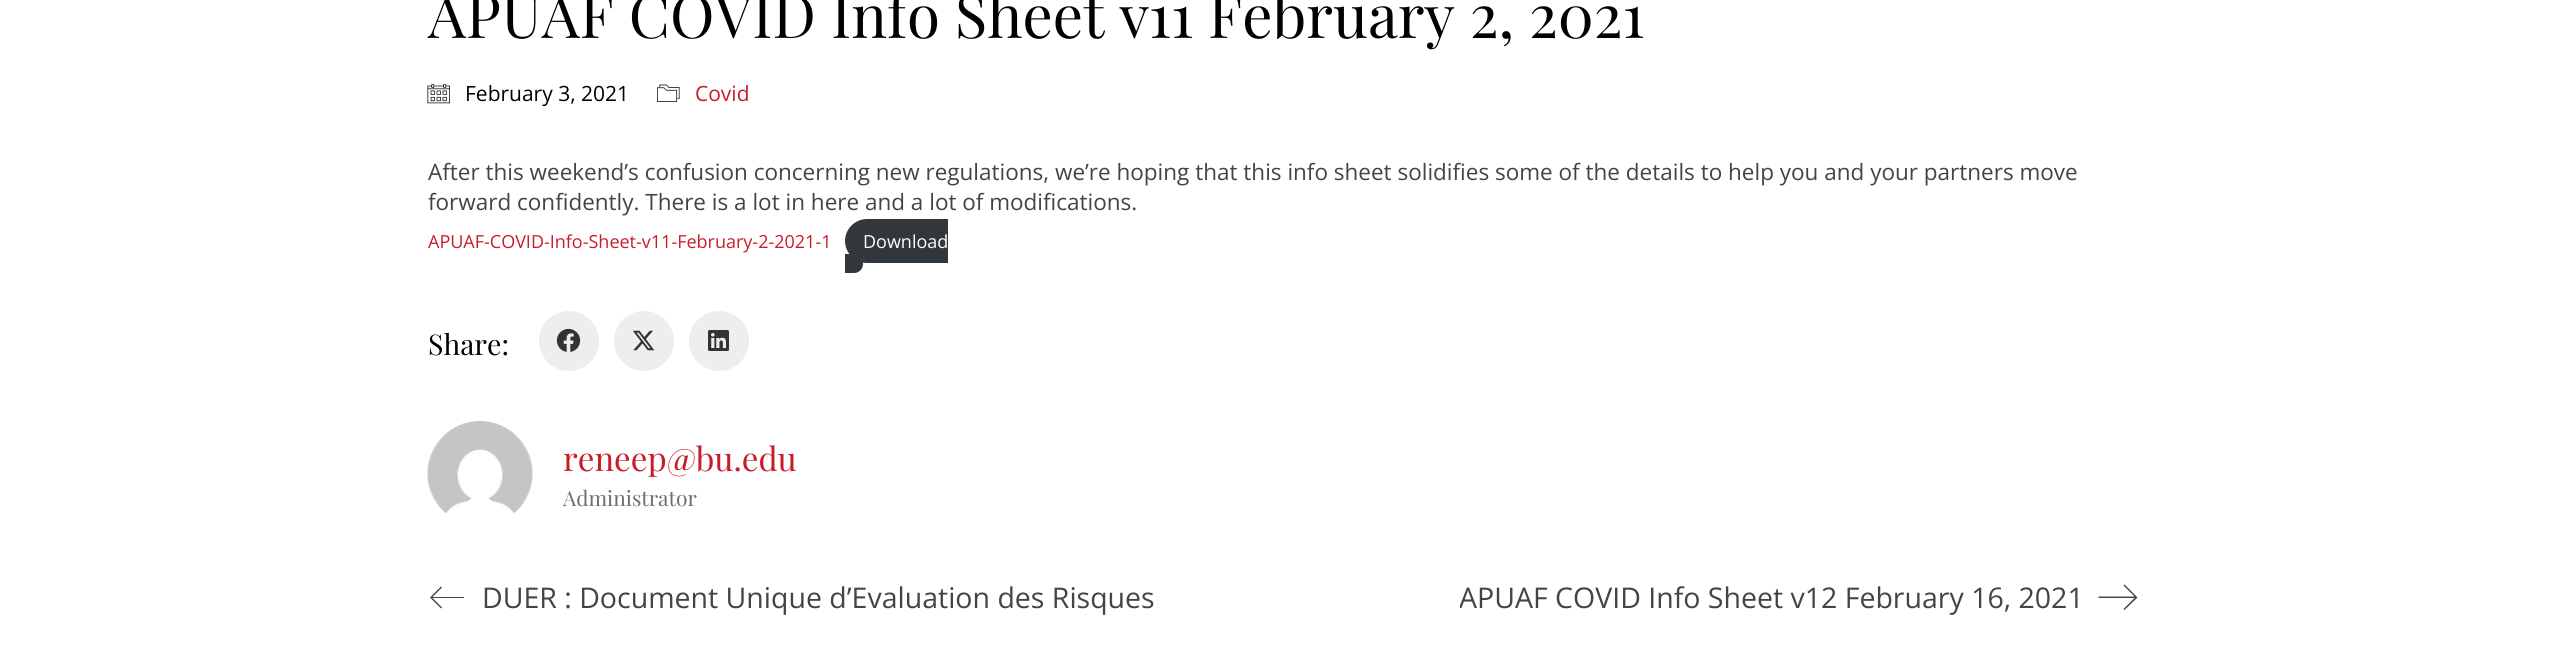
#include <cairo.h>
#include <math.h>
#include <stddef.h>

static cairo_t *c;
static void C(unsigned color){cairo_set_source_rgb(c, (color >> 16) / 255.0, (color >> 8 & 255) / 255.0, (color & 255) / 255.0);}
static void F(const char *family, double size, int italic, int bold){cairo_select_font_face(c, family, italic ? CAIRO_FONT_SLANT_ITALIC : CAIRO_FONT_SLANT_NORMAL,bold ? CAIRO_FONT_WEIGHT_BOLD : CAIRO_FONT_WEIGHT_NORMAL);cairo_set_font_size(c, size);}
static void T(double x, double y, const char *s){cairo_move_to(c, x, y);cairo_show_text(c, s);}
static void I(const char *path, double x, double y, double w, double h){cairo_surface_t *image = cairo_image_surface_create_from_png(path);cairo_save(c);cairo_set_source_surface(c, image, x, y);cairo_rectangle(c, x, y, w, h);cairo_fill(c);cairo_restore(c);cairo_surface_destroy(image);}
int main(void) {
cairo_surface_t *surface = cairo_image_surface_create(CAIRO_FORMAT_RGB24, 2564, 648);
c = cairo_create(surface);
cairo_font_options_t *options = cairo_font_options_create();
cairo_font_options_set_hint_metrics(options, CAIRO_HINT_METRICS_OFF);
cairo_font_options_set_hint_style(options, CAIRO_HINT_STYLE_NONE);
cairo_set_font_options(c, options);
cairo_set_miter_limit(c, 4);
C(0xffffff);
cairo_paint(c);
F("Playfair Display",60,0,0);
C(0x000000);
T(428,38,"APUAF COVID Info Sheet v11 February 2, 2021");
I("1.png",427,84,23,20);
F("Open Sans",21,0,0);
T(465,101,"February 3, 2021");
I("2.png",657,84,23,18);
C(0xc81c2a);
T(695,101,"Covid");
F("Open Sans",22.5,0,0);
C(0x444444);
T(428,180,"After this weekend’s confusion concerning new regulations, we’re hoping that this info sheet solidifies some of the details to help you and your partners move");
T(428,210,"forward confidently. There is a lot in here and a lot of modifications.");
F("Open Sans",18,0,0);
C(0xc81c2a);
T(428,248,"APUAF-COVID-Info-Sheet-v11-February-2-2021-1");
C(0x32373c);
cairo_new_path(c);
cairo_move_to(c,867,219);
cairo_line_to(c,948,219);
cairo_line_to(c,948,263);
cairo_line_to(c,867,263);
cairo_curve_to(c,855,263,845,253,845,241);
cairo_curve_to(c,845,229,855,219,867,219);
cairo_close_path(c);
cairo_fill(c);
C(0xffffff);
T(863,248,"Download");
C(0x32373c);
cairo_new_path(c);
cairo_move_to(c,845,254);
cairo_line_to(c,854,254);
cairo_curve_to(c,859,254,863,258,863,263);
cairo_line_to(c,863,264);
cairo_curve_to(c,863,269,859,273,854,273);
cairo_line_to(c,845,273);
cairo_close_path(c);
cairo_fill(c);
F("Playfair Display",28.5,0,0);
C(0x000000);
T(428,355,"Share:");
C(0xeeeeee);
cairo_new_path(c);
cairo_arc(c,569,341,30,0,2 * M_PI);
cairo_fill(c);
I("3.png",556,328,25,24);
cairo_arc(c,644,341,30,0,2 * M_PI);
cairo_fill(c);
I("4.png",632,330,23,21);
cairo_arc(c,719,341,30,0,2 * M_PI);
cairo_fill(c);
I("5.png",708,330,21,21);
I("6.png",427,421,106,93);
F("Playfair Display",33,0,0);
C(0xc81c2a);
T(563,471,"reneep@bu.edu");
F("Playfair Display",21,0,0);
C(0x6d6d6d);
T(563,506,"Administrator");
C(0x444444);
cairo_new_path(c);
cairo_move_to(c,464,597);
cairo_line_to(c,432.5,597);
cairo_line_to(c,442,587.5);
cairo_line_to(c,441,586.5);
cairo_line_to(c,430,597.5);
cairo_line_to(c,441,608.5);
cairo_line_to(c,442,607.5);
cairo_line_to(c,432.5,598);
cairo_line_to(c,464,598);
cairo_close_path(c);
cairo_fill(c);
F("Open Sans",28.5,0,0);
T(482,608,"DUER : Document Unique d’Evaluation des Risques");
cairo_save(c);
cairo_rectangle(c,1460,579,624,38);
cairo_clip(c);
T(1459,608,"APUAF COVID Info Sheet v12 February 16, 2021");
cairo_restore(c);
cairo_new_path(c);
cairo_move_to(c,2124.5,584.5);
cairo_line_to(c,2123.5,585.5);
cairo_line_to(c,2134.5,596.5);
cairo_line_to(c,2098.5,596.5);
cairo_line_to(c,2098.5,598);
cairo_line_to(c,2134.5,598);
cairo_line_to(c,2123.5,609);
cairo_line_to(c,2124.5,610);
cairo_line_to(c,2137.5,597.5);
cairo_close_path(c);
cairo_fill(c);
cairo_surface_write_to_png(surface, "o.png");
cairo_font_options_destroy(options);
cairo_destroy(c);
cairo_surface_destroy(surface);
return 0;
}
